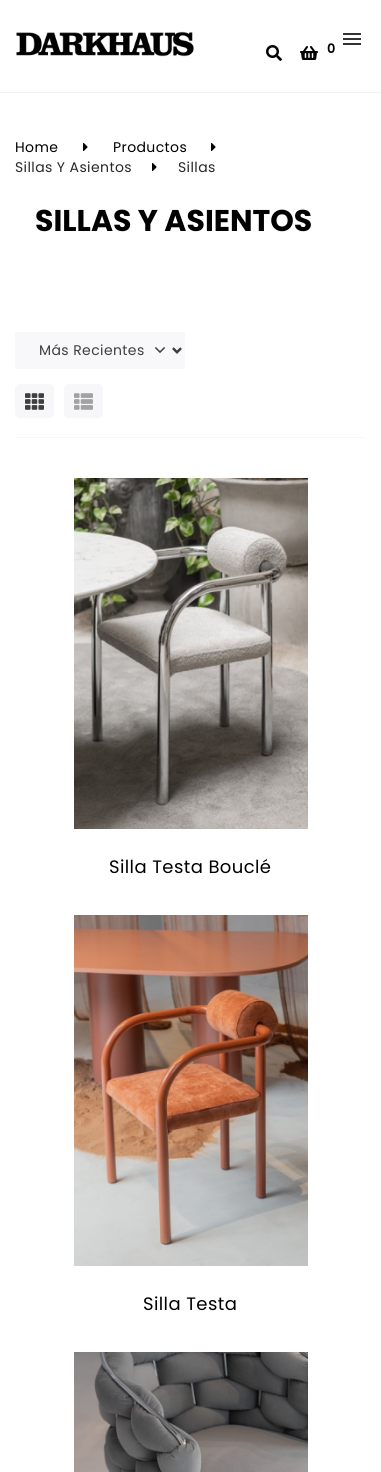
#include <cairo.h>
#include <math.h>
#include <stddef.h>

static cairo_t *c;
static void C(unsigned color){cairo_set_source_rgb(c, (color >> 16) / 255.0, (color >> 8 & 255) / 255.0, (color & 255) / 255.0);}
static void F(const char *family, double size, int italic, int bold){cairo_select_font_face(c, family, italic ? CAIRO_FONT_SLANT_ITALIC : CAIRO_FONT_SLANT_NORMAL,bold ? CAIRO_FONT_WEIGHT_BOLD : CAIRO_FONT_WEIGHT_NORMAL);cairo_set_font_size(c, size);}
static void T(double x, double y, const char *s){cairo_move_to(c, x, y);cairo_show_text(c, s);}
static void L(double x, double y, const char *s, double letter, double word){cairo_move_to(c, x, y);while (*s) {char ch[5] = {0};int n = 0;do ch[n++] = *s++; while ((*s & 0xC0) == 0x80);cairo_show_text(c, ch);cairo_rel_move_to(c, letter + word * (*ch == ' '), 0);}}
static void R(double x, double y, double w, double h){cairo_rectangle(c, x, y, w, h);cairo_fill(c);}
static void Q(double x, double y, double w, double h, double r){cairo_new_sub_path(c);cairo_arc(c, x + w - r, y + h - r, r, 0, M_PI / 2);cairo_arc(c, x + r, y + h - r, r, M_PI / 2, M_PI);cairo_arc(c, x + r, y + r, r, M_PI, 1.5 * M_PI);cairo_arc(c, x + w - r, y + r, r, 1.5 * M_PI, 2 * M_PI);cairo_close_path(c);}
static void I(const char *path, double x, double y, double w, double h){cairo_surface_t *image = cairo_image_surface_create_from_png(path);cairo_save(c);cairo_set_source_surface(c, image, x, y);cairo_rectangle(c, x, y, w, h);cairo_fill(c);cairo_restore(c);cairo_surface_destroy(image);}
int main(void) {
cairo_surface_t *surface = cairo_image_surface_create(CAIRO_FORMAT_RGB24, 381, 1472);
c = cairo_create(surface);
cairo_font_options_t *options = cairo_font_options_create();
cairo_font_options_set_hint_metrics(options, CAIRO_HINT_METRICS_OFF);
cairo_font_options_set_hint_style(options, CAIRO_HINT_STYLE_NONE);
cairo_set_font_options(c, options);
cairo_set_miter_limit(c, 4);
C(0xffffff);
cairo_paint(c);
C(0xf3f3f3);
R(0,92,381,1);
I("1.png",16,31,178,26);
C(0x333333);
R(343,33,18,2);
R(343,38,18,2);
R(343,43,18,2);
I("2.png",266,45,16,16);
I("3.png",300,46,18,14);
F("Poppins SemiBold",13,0,0);
C(0x000000);
T(327,53,"0");
F("Poppins",14,0,0);
L(15,152,"Home",.4,0);
I("4.png",83,143,5,8);
L(113,152,"Productos",.4,0);
I("4.png",211,143,5,8);
C(0x282828);
L(15,172,"Sillas Y Asientos",.4,0);
I("4.png",152,163,5,8);
L(178,172,"Sillas",.4,0);
F("Poppins",30,0,1);
C(0x000000);
T(35,231,"SILLAS Y ASIENTOS");
C(0xf7f6f8);
R(15,437,351,1);
C(0xf8f8fa);
R(15,332,170,37);
I("5.png",155,347,27,7);
cairo_new_path(c);
cairo_move_to(c,173,348.5);
cairo_line_to(c,177,352.5);
cairo_line_to(c,181,348.5);
C(0x3f3f3f);
cairo_stroke(c);
F("Poppins",14,0,0);
L(39,355,"Más Recientes",.4,0);
C(0xf7f6f8);
Q(15,384,39,34,5);
cairo_fill(c);
I("6.png",25,393,19,17);
Q(64,384,39,34,5);
cairo_fill(c);
I("7.png",74,393,19,17);
I("8.png",74,478,234,351);
F("Poppins",18,0,0);
C(0x000000);
L(109,873,"Silla Testa Bouclé",.4,0);
I("9.png",74,915,234,351);
L(143,1310,"Silla Testa",.4,0);
I("10.png",74,1352,234,120);
cairo_surface_write_to_png(surface, "o.png");
cairo_font_options_destroy(options);
cairo_destroy(c);
cairo_surface_destroy(surface);
return 0;
}
